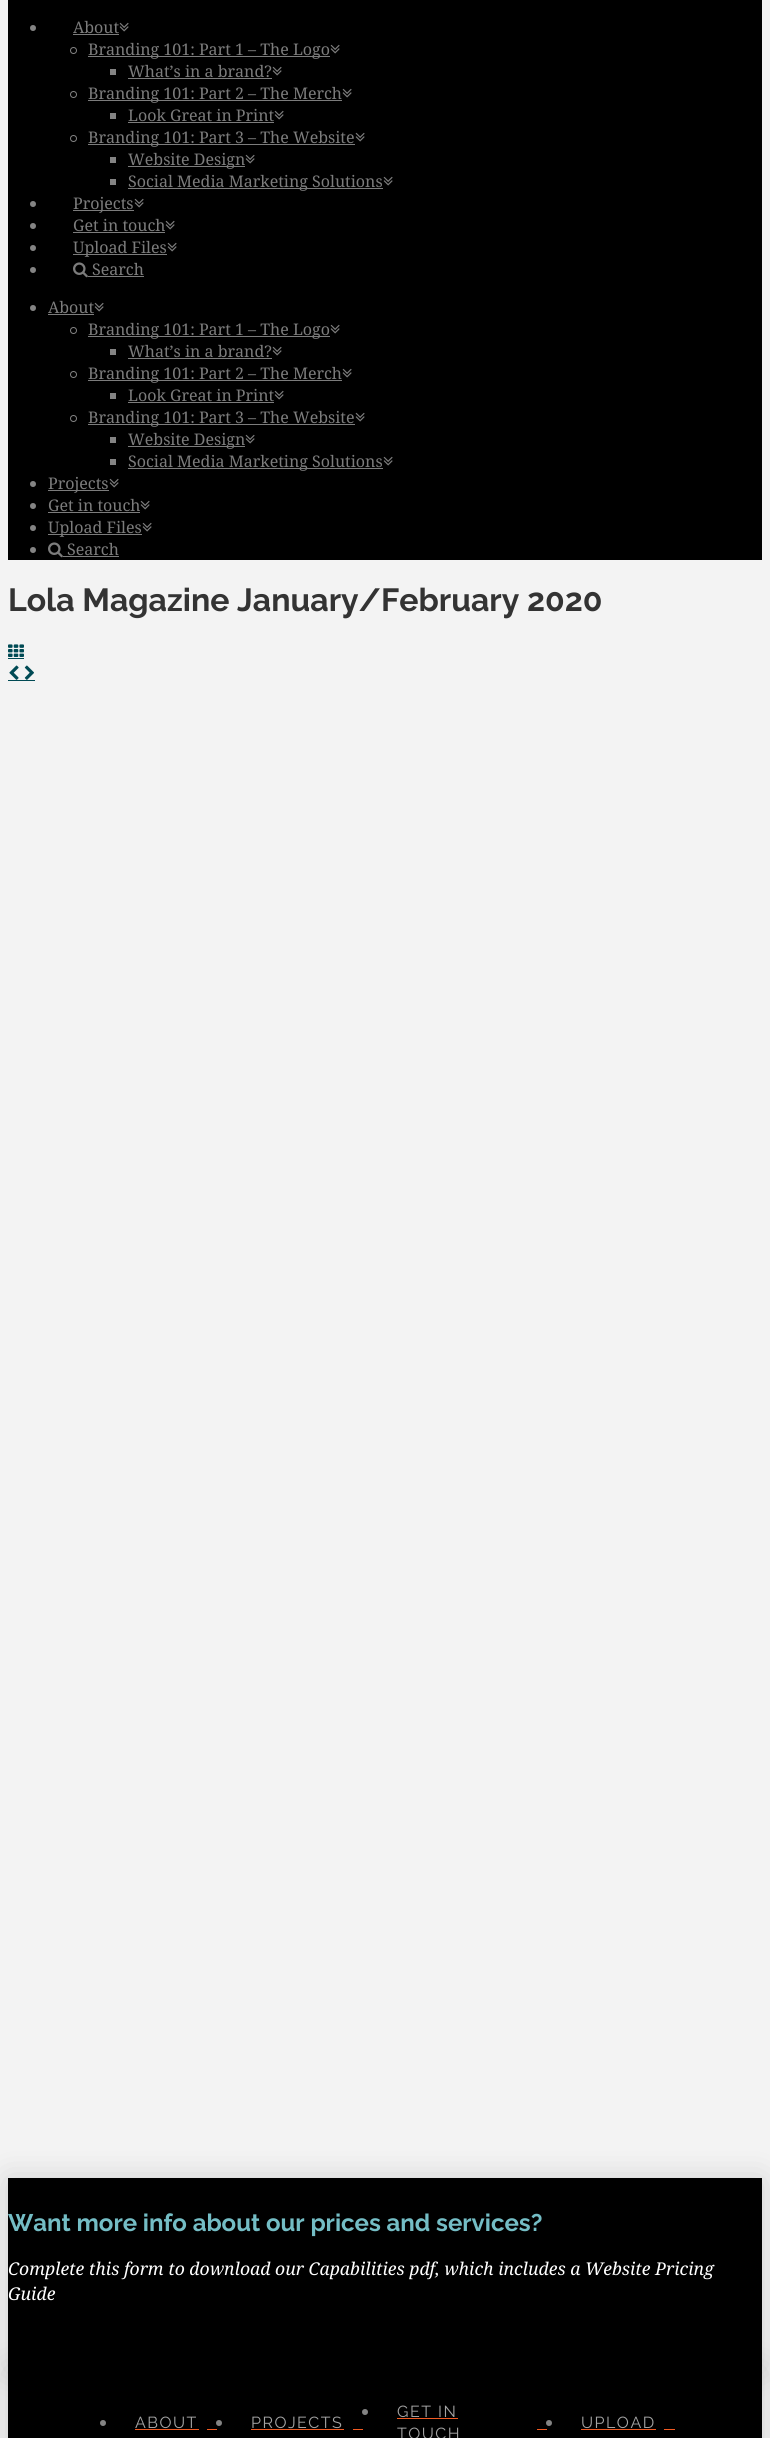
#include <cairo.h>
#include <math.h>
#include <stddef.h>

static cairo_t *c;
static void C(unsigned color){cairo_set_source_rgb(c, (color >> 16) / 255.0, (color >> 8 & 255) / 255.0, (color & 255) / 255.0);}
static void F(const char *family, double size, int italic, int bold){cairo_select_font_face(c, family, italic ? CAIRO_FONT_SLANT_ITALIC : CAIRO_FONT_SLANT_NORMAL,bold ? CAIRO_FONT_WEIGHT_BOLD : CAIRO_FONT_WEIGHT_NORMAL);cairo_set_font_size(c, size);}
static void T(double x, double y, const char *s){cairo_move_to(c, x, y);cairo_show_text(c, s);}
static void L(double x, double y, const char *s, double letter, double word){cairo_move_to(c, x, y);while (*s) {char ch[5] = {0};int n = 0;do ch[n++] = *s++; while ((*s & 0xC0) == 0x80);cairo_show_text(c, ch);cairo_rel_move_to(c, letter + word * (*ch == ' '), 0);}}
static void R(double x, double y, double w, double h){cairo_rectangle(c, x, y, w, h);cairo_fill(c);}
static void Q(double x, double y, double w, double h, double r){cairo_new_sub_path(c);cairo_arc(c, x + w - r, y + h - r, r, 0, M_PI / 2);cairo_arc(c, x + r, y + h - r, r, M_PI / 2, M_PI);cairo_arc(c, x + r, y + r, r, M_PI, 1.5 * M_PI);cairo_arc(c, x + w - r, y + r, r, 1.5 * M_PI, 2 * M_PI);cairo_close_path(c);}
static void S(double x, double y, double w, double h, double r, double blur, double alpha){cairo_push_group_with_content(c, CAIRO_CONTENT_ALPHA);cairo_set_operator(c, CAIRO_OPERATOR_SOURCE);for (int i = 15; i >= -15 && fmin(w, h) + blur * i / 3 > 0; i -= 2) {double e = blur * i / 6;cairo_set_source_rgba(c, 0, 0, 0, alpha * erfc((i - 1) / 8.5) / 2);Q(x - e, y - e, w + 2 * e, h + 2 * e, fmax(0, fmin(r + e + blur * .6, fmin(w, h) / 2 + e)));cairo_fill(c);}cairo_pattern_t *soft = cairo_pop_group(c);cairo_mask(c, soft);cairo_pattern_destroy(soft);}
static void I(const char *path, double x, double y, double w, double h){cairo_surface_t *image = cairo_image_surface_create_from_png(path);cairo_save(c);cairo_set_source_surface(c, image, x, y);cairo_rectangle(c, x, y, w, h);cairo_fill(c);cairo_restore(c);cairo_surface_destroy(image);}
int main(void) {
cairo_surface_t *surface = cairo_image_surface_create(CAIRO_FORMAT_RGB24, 770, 2438);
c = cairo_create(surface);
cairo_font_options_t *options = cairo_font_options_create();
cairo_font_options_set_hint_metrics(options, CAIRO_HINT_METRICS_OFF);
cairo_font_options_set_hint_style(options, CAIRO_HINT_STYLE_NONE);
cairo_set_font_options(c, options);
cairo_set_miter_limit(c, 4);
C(0xf3f3f3);
cairo_paint(c);
C(0x000000);
R(8,0,754,560);
C(0x848484);
cairo_arc(c,33,28,3,0,2 * M_PI);
cairo_fill(c);
F("Noto Serif",16,0,0);
C(0x7c7c7c);
T(73,33,"About");
R(73,34,46,1);
I("1.png",119,22,10,10);
cairo_arc(c,73.5,50.5,3,0,2 * M_PI);
C(0x848484);
cairo_set_line_width(c,1);
cairo_stroke(c);
C(0x7c7c7c);
R(88,56,242,1);
T(88,55,"Branding 101: Part 1 – The Logo");
I("1.png",330,44,10,10);
C(0x848484);
R(110,69,6,6);
C(0x7c7c7c);
T(128,77,"What’s in a brand?");
R(128,78,144,1);
I("1.png",272,66,10,10);
cairo_arc(c,73.5,94.5,3,0,2 * M_PI);
C(0x848484);
cairo_stroke(c);
C(0x7c7c7c);
R(88,100,254,1);
T(88,99,"Branding 101: Part 2 – The Merch");
I("1.png",342,88,10,10);
C(0x848484);
R(110,113,6,6);
C(0x7c7c7c);
T(128,121,"Look Great in Print");
R(128,122,146,1);
I("1.png",274,110,10,10);
cairo_arc(c,73.5,138.5,3,0,2 * M_PI);
C(0x848484);
cairo_stroke(c);
C(0x7c7c7c);
R(88,144,267,1);
T(88,143,"Branding 101: Part 3 – The Website");
I("1.png",355,132,10,10);
C(0x848484);
R(110,157,6,6);
C(0x7c7c7c);
R(128,166,117,1);
T(128,165,"Website Design");
I("1.png",245,154,10,10);
C(0x848484);
R(110,179,6,6);
C(0x7c7c7c);
R(128,188,255,1);
T(128,187,"Social Media Marketing Solutions");
I("1.png",383,176,10,10);
C(0x848484);
cairo_arc(c,33,204,3,0,2 * M_PI);
cairo_fill(c);
C(0x7c7c7c);
R(73,210,61,1);
T(73,209,"Projects");
I("1.png",134,198,10,10);
C(0x848484);
cairo_arc(c,33,226,3,0,2 * M_PI);
cairo_fill(c);
C(0x7c7c7c);
T(73,231,"Get in touch");
R(73,232,92,1);
I("1.png",165,220,10,10);
C(0x848484);
cairo_arc(c,33,248,3,0,2 * M_PI);
cairo_fill(c);
C(0x7c7c7c);
R(73,254,94,1);
T(73,253,"Upload Files");
I("1.png",167,242,10,10);
C(0x848484);
cairo_arc(c,33,270,3,0,2 * M_PI);
cairo_fill(c);
I("2.png",73,262,15,16);
C(0x7c7c7c);
T(92,275,"Search");
R(88,276,56,1);
C(0x848484);
cairo_new_path(c);
cairo_arc(c,33,308,3,0,2 * M_PI);
cairo_fill(c);
C(0x7c7c7c);
T(48,313,"About");
R(48,314,46,1);
I("1.png",94,302,10,10);
cairo_arc(c,73.5,330.5,3,0,2 * M_PI);
C(0x848484);
cairo_stroke(c);
C(0x7c7c7c);
R(88,336,242,1);
T(88,335,"Branding 101: Part 1 – The Logo");
I("1.png",330,324,10,10);
C(0x848484);
R(110,349,6,6);
C(0x7c7c7c);
T(128,357,"What’s in a brand?");
R(128,358,144,1);
I("1.png",272,346,10,10);
cairo_arc(c,73.5,374.5,3,0,2 * M_PI);
C(0x848484);
cairo_stroke(c);
C(0x7c7c7c);
R(88,380,254,1);
T(88,379,"Branding 101: Part 2 – The Merch");
I("1.png",342,368,10,10);
C(0x848484);
R(110,393,6,6);
C(0x7c7c7c);
T(128,401,"Look Great in Print");
R(128,402,146,1);
I("1.png",274,390,10,10);
cairo_arc(c,73.5,418.5,3,0,2 * M_PI);
C(0x848484);
cairo_stroke(c);
C(0x7c7c7c);
R(88,424,267,1);
T(88,423,"Branding 101: Part 3 – The Website");
I("1.png",355,412,10,10);
C(0x848484);
R(110,437,6,6);
C(0x7c7c7c);
R(128,446,117,1);
T(128,445,"Website Design");
I("1.png",245,434,10,10);
C(0x848484);
R(110,459,6,6);
C(0x7c7c7c);
R(128,468,255,1);
T(128,467,"Social Media Marketing Solutions");
I("1.png",383,456,10,10);
C(0x848484);
cairo_arc(c,33,484,3,0,2 * M_PI);
cairo_fill(c);
C(0x7c7c7c);
R(48,490,61,1);
T(48,489,"Projects");
I("1.png",109,478,10,10);
C(0x848484);
cairo_arc(c,33,506,3,0,2 * M_PI);
cairo_fill(c);
C(0x7c7c7c);
T(48,511,"Get in touch");
R(48,512,92,1);
I("1.png",140,500,10,10);
C(0x848484);
cairo_arc(c,33,528,3,0,2 * M_PI);
cairo_fill(c);
C(0x7c7c7c);
R(48,534,94,1);
T(48,533,"Upload Files");
I("1.png",142,522,10,10);
C(0x848484);
cairo_arc(c,33,550,3,0,2 * M_PI);
cairo_fill(c);
I("2.png",48,542,15,16);
C(0x7c7c7c);
T(67,555,"Search");
R(63,556,56,1);
F("Raleway",32,0,1);
C(0x333333);
T(8,611,"Lola Magazine January/February 2020");
C(0x004a54);
R(8,658,16,1);
I("3.png",8,644,16,13);
R(8,680,27,1);
I("4.png",9,665,10,15);
I("5.png",24,665,10,15);
C(0x000000);
S(8,2180,754,189,0,16,.15);
C(0x000000);
R(8,2178,754,189);
F("Raleway",24,0,1);
C(0x74bdc5);
T(8,2231,"Want more info about our prices and services?");
F("Noto Serif",17.6,1,0);
C(0xffffff);
T(8,2275,"Complete this form to download our Capabilities pdf, which includes a Website Pricing");
T(8,2300,"Guide");
C(0x000000);
S(8,2369,754,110,0,16,.15);
C(0x000000);
R(8,2367,754,71);
C(0x848484);
cairo_arc(c,103,2423,3,0,2 * M_PI);
cairo_fill(c);
F("Raleway",16,0,0);
C(0xa4a4a4);
L(135,2428,"ABOUT",1.5,0);
C(0xf15a22);
R(135,2429,64,1);
R(207,2429,10,1);
C(0x848484);
cairo_new_path(c);
cairo_arc(c,219,2423,3,0,2 * M_PI);
cairo_fill(c);
C(0xa4a4a4);
L(251,2428,"PROJECTS",1.5,0);
C(0xf15a22);
R(251,2429,93,1);
R(353,2429,10,1);
C(0x848484);
cairo_new_path(c);
cairo_arc(c,365,2412,3,0,2 * M_PI);
cairo_fill(c);
C(0xa4a4a4);
L(397,2417,"GET IN",1.5,0);
C(0xf15a22);
R(397,2418,61,1);
C(0xa4a4a4);
L(397,2439,"TOUCH",1.5,0);
C(0xf15a22);
R(537,2429,10,1);
C(0x848484);
cairo_new_path(c);
cairo_arc(c,549,2423,3,0,2 * M_PI);
cairo_fill(c);
C(0xa4a4a4);
L(581,2428,"UPLOAD",1.5,0);
C(0xf15a22);
R(581,2429,75,1);
R(664,2429,11,1);
cairo_surface_write_to_png(surface, "o.png");
cairo_font_options_destroy(options);
cairo_destroy(c);
cairo_surface_destroy(surface);
return 0;
}
